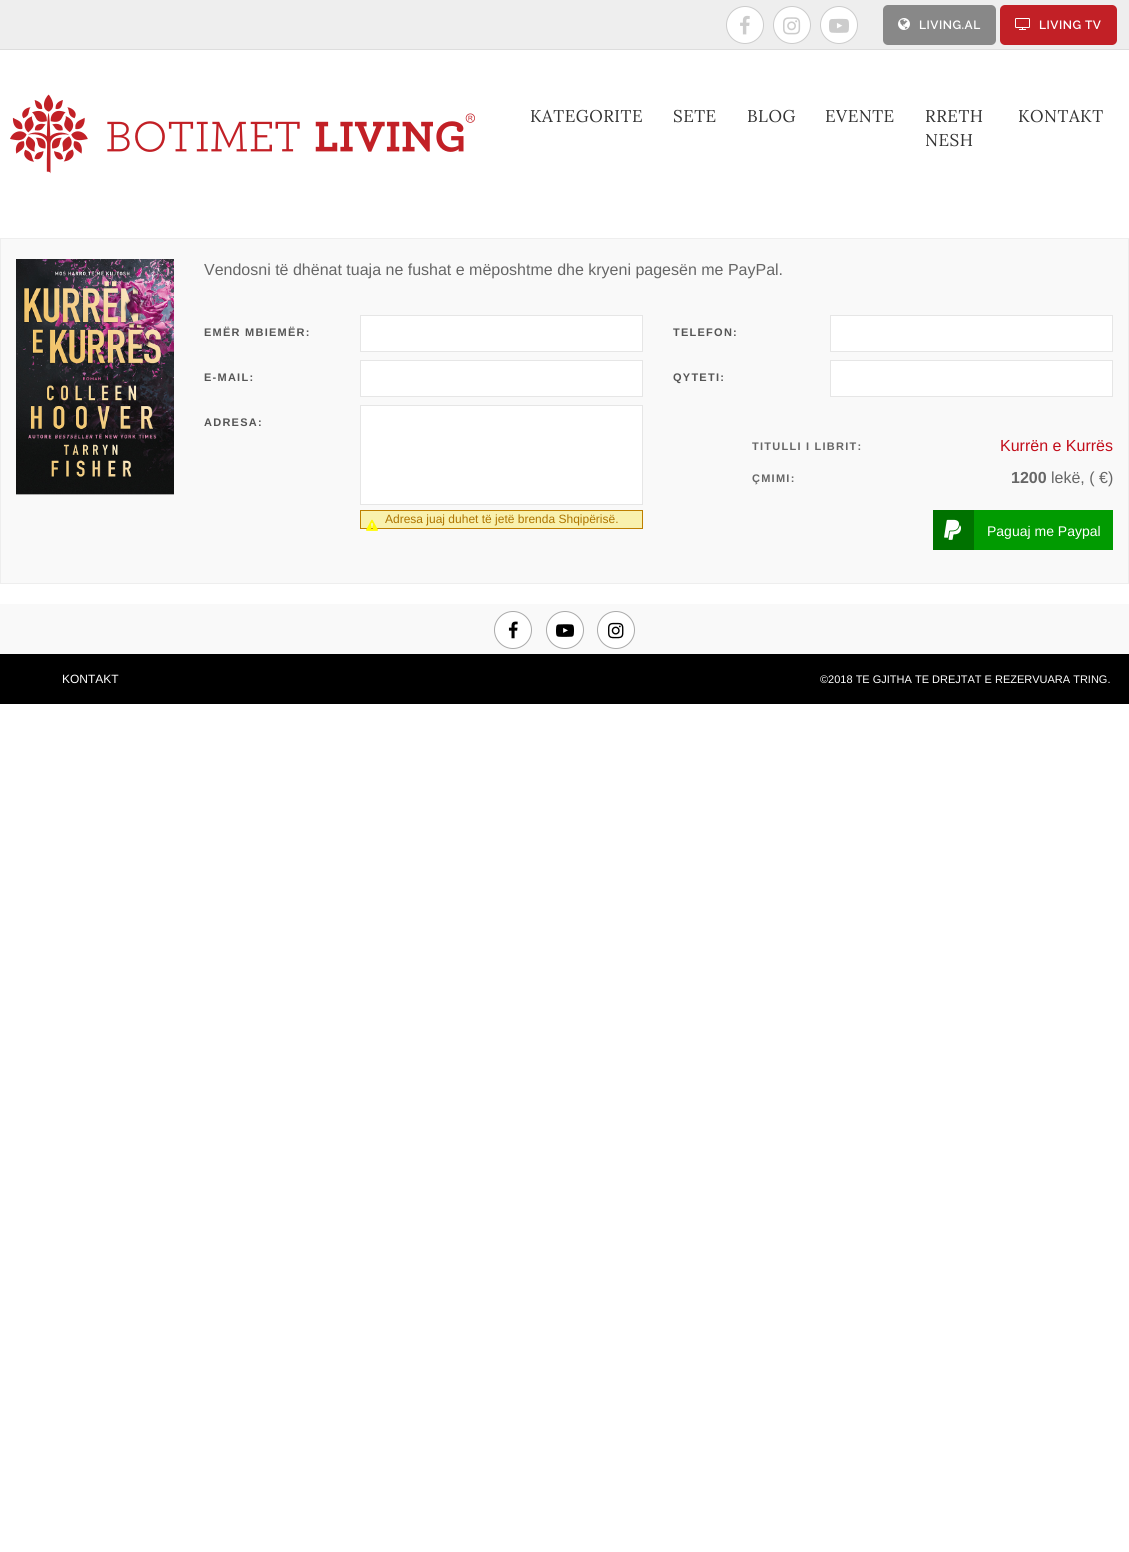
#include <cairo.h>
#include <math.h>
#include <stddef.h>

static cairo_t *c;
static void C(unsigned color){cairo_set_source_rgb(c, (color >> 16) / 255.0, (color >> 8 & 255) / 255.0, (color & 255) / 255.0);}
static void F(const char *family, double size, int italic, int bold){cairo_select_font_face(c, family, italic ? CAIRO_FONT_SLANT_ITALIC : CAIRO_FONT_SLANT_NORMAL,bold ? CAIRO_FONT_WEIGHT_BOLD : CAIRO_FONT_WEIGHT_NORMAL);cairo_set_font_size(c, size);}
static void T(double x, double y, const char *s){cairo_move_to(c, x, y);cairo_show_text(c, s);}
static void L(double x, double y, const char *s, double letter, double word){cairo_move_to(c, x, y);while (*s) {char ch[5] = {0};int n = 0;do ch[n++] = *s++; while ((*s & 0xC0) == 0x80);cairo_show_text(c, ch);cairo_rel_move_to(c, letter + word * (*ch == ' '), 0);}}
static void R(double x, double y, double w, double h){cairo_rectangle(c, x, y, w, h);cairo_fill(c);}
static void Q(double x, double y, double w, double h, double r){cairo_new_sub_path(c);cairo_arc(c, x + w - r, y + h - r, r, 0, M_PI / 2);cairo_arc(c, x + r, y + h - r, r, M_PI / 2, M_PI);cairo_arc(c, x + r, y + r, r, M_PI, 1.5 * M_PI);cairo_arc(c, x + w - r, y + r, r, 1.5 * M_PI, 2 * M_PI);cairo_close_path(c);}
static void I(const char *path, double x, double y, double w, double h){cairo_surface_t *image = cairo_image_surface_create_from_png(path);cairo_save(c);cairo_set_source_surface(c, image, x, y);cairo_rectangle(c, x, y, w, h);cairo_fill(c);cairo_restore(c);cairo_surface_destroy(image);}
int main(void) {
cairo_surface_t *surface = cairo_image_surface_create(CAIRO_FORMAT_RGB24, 1129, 1552);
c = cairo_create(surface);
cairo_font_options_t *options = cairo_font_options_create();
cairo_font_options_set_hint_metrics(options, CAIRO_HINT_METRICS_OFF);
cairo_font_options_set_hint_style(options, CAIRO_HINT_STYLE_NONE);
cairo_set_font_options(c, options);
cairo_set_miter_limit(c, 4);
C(0xffffff);
cairo_paint(c);
C(0xeeeeee);
R(0,0,1129,49);
C(0xdddddd);
R(0,49,1129,1);
C(0xffffff);
cairo_arc(c,745,25,18.5,0,2 * M_PI);
cairo_fill_preserve(c);
C(0xcccccc);
cairo_set_line_width(c,1);
cairo_stroke(c);
I("1.png",740,15,10,20);
C(0xffffff);
cairo_arc(c,792,25,18.5,0,2 * M_PI);
cairo_fill_preserve(c);
C(0xcccccc);
cairo_stroke(c);
I("2.png",783,17,18,18);
C(0xffffff);
cairo_arc(c,839,25,18.5,0,2 * M_PI);
cairo_fill_preserve(c);
C(0xcccccc);
cairo_stroke(c);
I("3.png",829,18,20,15);
C(0x888888);
Q(883,5,113,40,5);
cairo_fill(c);
I("4.png",898,18,12,12);
F("Raleway SemiBold",12,0,0);
C(0xffffff);
L(919,29,"LIVING.AL",.5,0);
C(0xc22026);
Q(1000,5,117,40,5);
cairo_fill(c);
I("5.png",1015,18,15,12);
C(0xffffff);
L(1039,29,"LIVING TV",.5,0);
I("6.png",10,94,465,80);
F("Lora",17,0,0);
C(0x333333);
L(530,122,"KATEGORITE",.5,0);
L(673,122,"SETE",.5,0);
L(747,122,"BLOG",.5,0);
L(825,122,"EVENTE",.5,0);
L(925,122,"RRETH",.5,0);
L(925,146,"NESH",.5,0);
L(1018,122,"KONTAKT",.5,0);
C(0xf9f9f9);
cairo_rectangle(c,.5,238.5,1128,345);
cairo_fill_preserve(c);
C(0xeeeeee);
cairo_stroke(c);
I("7.png",16,259,158,236);
F("Liberation Sans",16,0,0);
C(0x666666);
T(204,275,"Vendosni të dhënat tuaja ne fushat e mëposhtme dhe kryeni pagesën me PayPal.");
F("Liberation Sans",11,0,1);
C(0x555555);
L(204,336,"EMËR MBIEMËR:",1.25,0);
C(0xffffff);
cairo_rectangle(c,360.5,315.5,282,36);
cairo_fill_preserve(c);
C(0xe6e6e6);
cairo_stroke(c);
C(0x555555);
L(673,336,"TELEFON:",1.25,0);
C(0xffffff);
cairo_rectangle(c,830.5,315.5,282,36);
cairo_fill_preserve(c);
C(0xe6e6e6);
cairo_stroke(c);
C(0x555555);
L(204,381,"E-MAIL:",1.25,0);
C(0xffffff);
cairo_rectangle(c,360.5,360.5,282,36);
cairo_fill_preserve(c);
C(0xe6e6e6);
cairo_stroke(c);
C(0x555555);
L(673,381,"QYTETI:",1.25,0);
C(0xffffff);
cairo_rectangle(c,830.5,360.5,282,36);
cairo_fill_preserve(c);
C(0xe6e6e6);
cairo_stroke(c);
C(0x555555);
L(204,426,"ADRESA:",1.25,0);
C(0xffffff);
cairo_rectangle(c,360.5,405.5,282,99);
cairo_fill_preserve(c);
C(0xe6e6e6);
cairo_stroke(c);
C(0xf9f1ad);
cairo_rectangle(c,360.5,510.5,282,18);
cairo_fill_preserve(c);
C(0xbe7f00);
cairo_stroke(c);
I("8.png",366,519,12,12);
F("Liberation Sans",12,0,0);
C(0xad7400);
T(385,523,"Adresa juaj duhet të jetë brenda Shqipërisë.");
F("Liberation Sans",11,0,1);
C(0x666666);
L(752,450,"TITULLI I LIBRIT:",1.25,0);
F("Liberation Sans",16,0,0);
C(0xc20d1a);
T(1000,451,"Kurrën e Kurrës");
F("Liberation Sans",11,0,1);
C(0x666666);
L(752,482,"ÇMIMI:",1.25,0);
F("Liberation Sans",16,0,1);
T(1011,483,"1200");
F("Liberation Sans",16,0,0);
T(1051,483,"lekë, ( €)");
C(0x019b01);
R(974,510,139,40);
C(0x007200);
R(933,510,41,40);
I("9.png",944,519,17,21);
F("Liberation Sans",14,0,0);
C(0xffffff);
T(987,536,"Paguaj me Paypal");
C(0xf9f9f9);
R(0,604,1129,50);
C(0xffffff);
cairo_new_path(c);
cairo_arc(c,513,630,18.5,0,2 * M_PI);
cairo_fill_preserve(c);
C(0xaaaaaa);
cairo_stroke(c);
I("10.png",508,621,10,18);
C(0xffffff);
cairo_arc(c,565,630,18.5,0,2 * M_PI);
cairo_fill_preserve(c);
C(0xaaaaaa);
cairo_stroke(c);
I("11.png",556,624,18,13);
C(0xffffff);
cairo_arc(c,616,630,18.5,0,2 * M_PI);
cairo_fill_preserve(c);
C(0xaaaaaa);
cairo_stroke(c);
I("12.png",608,622,16,17);
C(0x000000);
R(0,654,1129,50);
F("Liberation Sans",12,0,0);
C(0xffffff);
T(62,683,"KONTAKT");
F("Liberation Sans",11,0,0);
T(820,683,"©2018 TE GJITHA TE DREJTAT E REZERVUARA TRING.");
cairo_surface_write_to_png(surface, "o.png");
cairo_font_options_destroy(options);
cairo_destroy(c);
cairo_surface_destroy(surface);
return 0;
}
